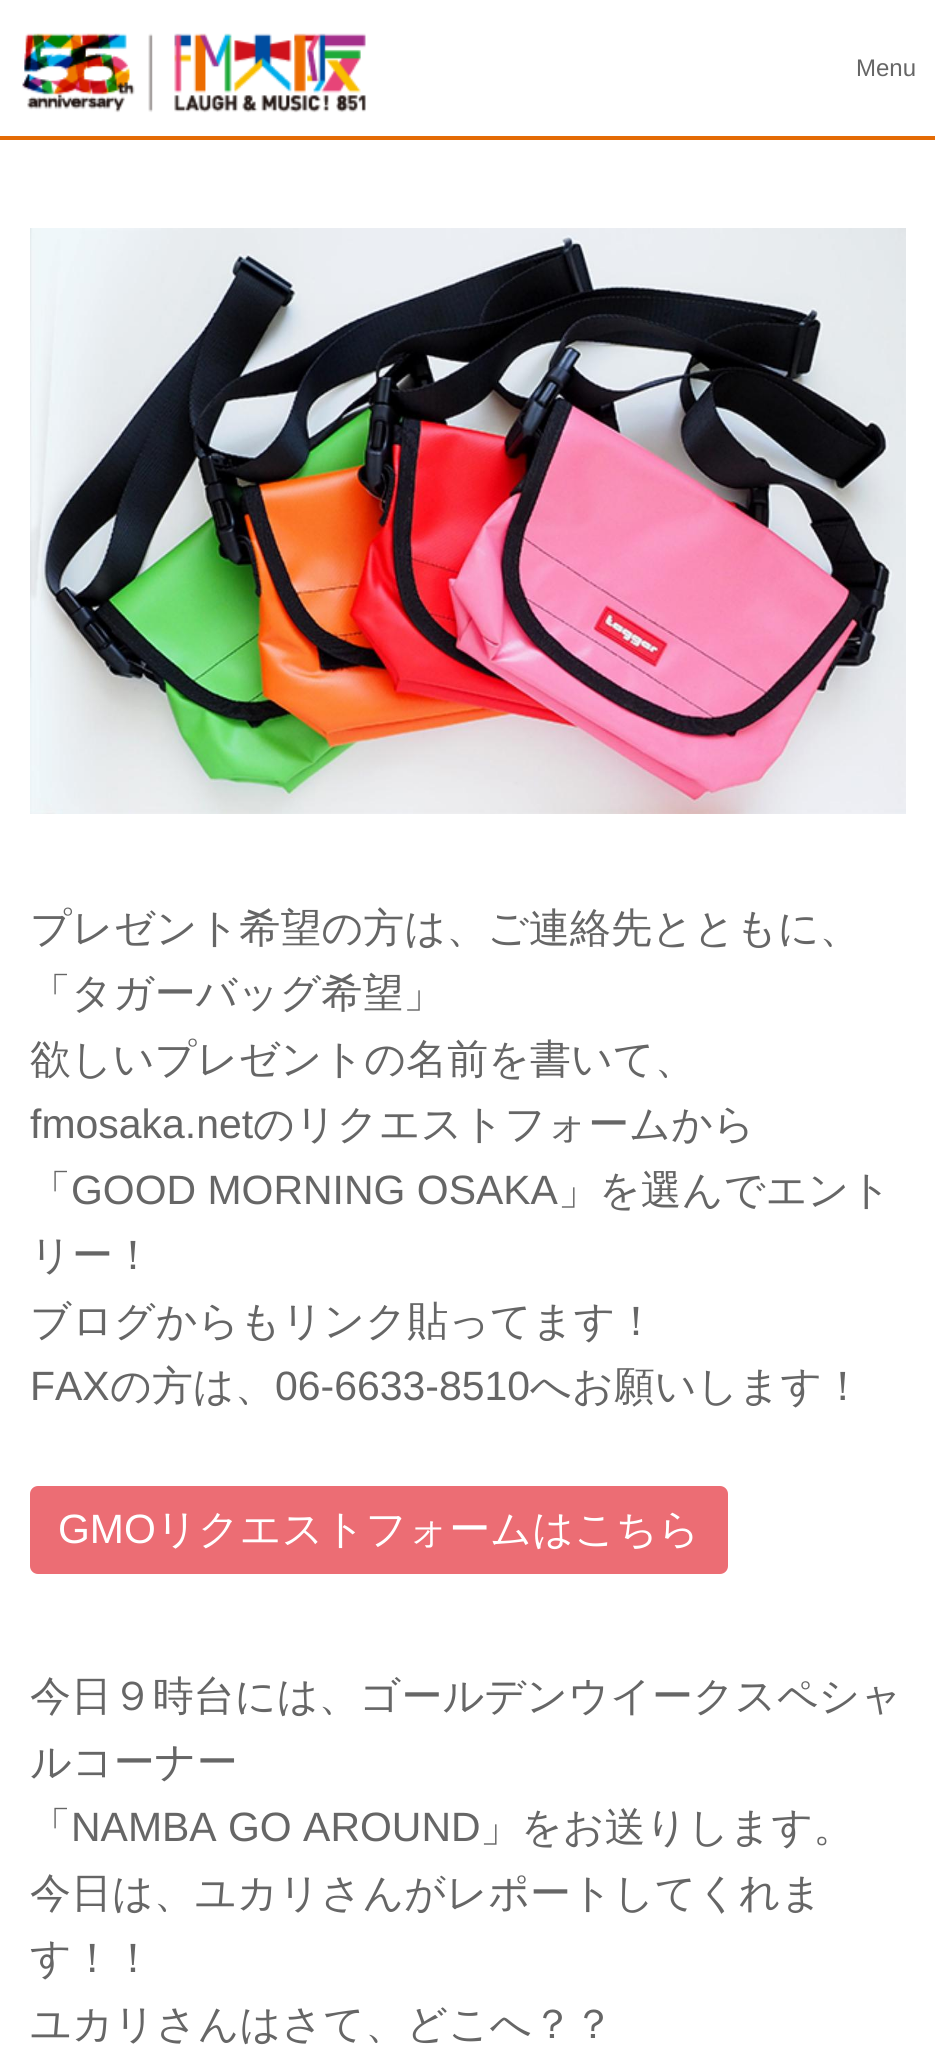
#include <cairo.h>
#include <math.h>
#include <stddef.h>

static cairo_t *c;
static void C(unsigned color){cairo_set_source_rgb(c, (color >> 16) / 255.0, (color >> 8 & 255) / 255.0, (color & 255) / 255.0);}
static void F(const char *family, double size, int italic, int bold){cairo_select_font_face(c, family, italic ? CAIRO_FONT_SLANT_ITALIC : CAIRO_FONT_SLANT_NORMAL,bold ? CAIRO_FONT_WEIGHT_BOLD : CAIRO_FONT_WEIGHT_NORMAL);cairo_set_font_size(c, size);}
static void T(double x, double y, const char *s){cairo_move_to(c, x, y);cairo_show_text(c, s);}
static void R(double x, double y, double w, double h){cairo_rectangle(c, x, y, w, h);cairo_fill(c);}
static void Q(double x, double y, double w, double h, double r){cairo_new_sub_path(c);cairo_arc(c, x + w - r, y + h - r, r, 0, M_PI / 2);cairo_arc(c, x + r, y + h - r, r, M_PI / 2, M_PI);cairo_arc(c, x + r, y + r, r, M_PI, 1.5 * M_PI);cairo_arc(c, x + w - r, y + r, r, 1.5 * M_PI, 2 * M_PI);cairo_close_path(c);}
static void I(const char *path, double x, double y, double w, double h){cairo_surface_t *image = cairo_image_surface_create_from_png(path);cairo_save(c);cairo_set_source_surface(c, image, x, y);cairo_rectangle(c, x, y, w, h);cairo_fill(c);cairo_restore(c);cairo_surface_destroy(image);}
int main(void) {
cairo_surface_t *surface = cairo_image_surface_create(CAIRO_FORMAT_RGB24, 935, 2066);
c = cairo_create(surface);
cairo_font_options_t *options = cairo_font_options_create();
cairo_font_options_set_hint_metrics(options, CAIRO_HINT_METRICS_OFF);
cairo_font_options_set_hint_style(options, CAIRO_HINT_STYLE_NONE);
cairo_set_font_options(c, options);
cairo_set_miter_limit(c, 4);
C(0xffffff);
cairo_paint(c);
I("1.png",22,33,344,80);
F("Liberation Sans",24,0,0);
C(0x666666);
T(856,76,"Menu");
C(0xe46b04);
R(0,136,935,4);
I("2.png",30,228,876,586);
F("WenQuanYi Zen Hei Medium",40.95,0,0);
C(0x666666);
T(30,942,"プレゼント希望の方は、ご連絡先とともに、");
T(30,1007,"「タガーバッグ希望」");
T(30,1073,"欲しいプレゼントの名前を書いて、");
F("Liberation Sans",40.95,0,0);
T(30,1138,"fmosaka.net");
F("WenQuanYi Zen Hei Medium",40.95,0,0);
T(253,1138,"のリクエストフォームから");
T(30,1204,"「");
F("Liberation Sans",40.95,0,0);
T(71,1204,"GOOD MORNING OSAKA");
F("WenQuanYi Zen Hei Medium",40.95,0,0);
T(558,1204,"」を選んでエント");
T(30,1269,"リー！");
T(30,1335,"ブログからもリンク貼ってます！");
F("Liberation Sans",40.95,0,0);
T(30,1400,"FAX");
F("WenQuanYi Zen Hei Medium",40.95,0,0);
T(110,1400,"の方は、");
F("Liberation Sans",40.95,0,0);
T(275,1400,"06-6633-8510");
F("WenQuanYi Zen Hei Medium",40.95,0,0);
T(530,1400,"へお願いします！");
C(0xec6d74);
Q(32,1488,694,84,6);
cairo_fill_preserve(c);
cairo_set_line_width(c,4);
cairo_stroke(c);
F("Liberation Sans",40.95,0,0);
C(0xffffff);
T(58,1543,"GMO");
F("WenQuanYi Zen Hei Medium",40.95,0,0);
T(156,1543,"リクエストフォームはこちら");
C(0x666666);
T(30,1710,"今日９時台には、ゴールデンウイークスペシャ");
T(30,1776,"ルコーナー");
T(30,1841,"「");
F("Liberation Sans",40.95,0,0);
T(71,1841,"NAMBA GO AROUND");
F("WenQuanYi Zen Hei Medium",40.95,0,0);
T(480,1841,"」をお送りします。");
T(30,1907,"今日は、ユカリさんがレポートしてくれま");
T(30,1972,"す！！");
T(30,2038,"ユカリさんはさて、どこへ？？");
cairo_surface_write_to_png(surface, "o.png");
cairo_font_options_destroy(options);
cairo_destroy(c);
cairo_surface_destroy(surface);
return 0;
}
